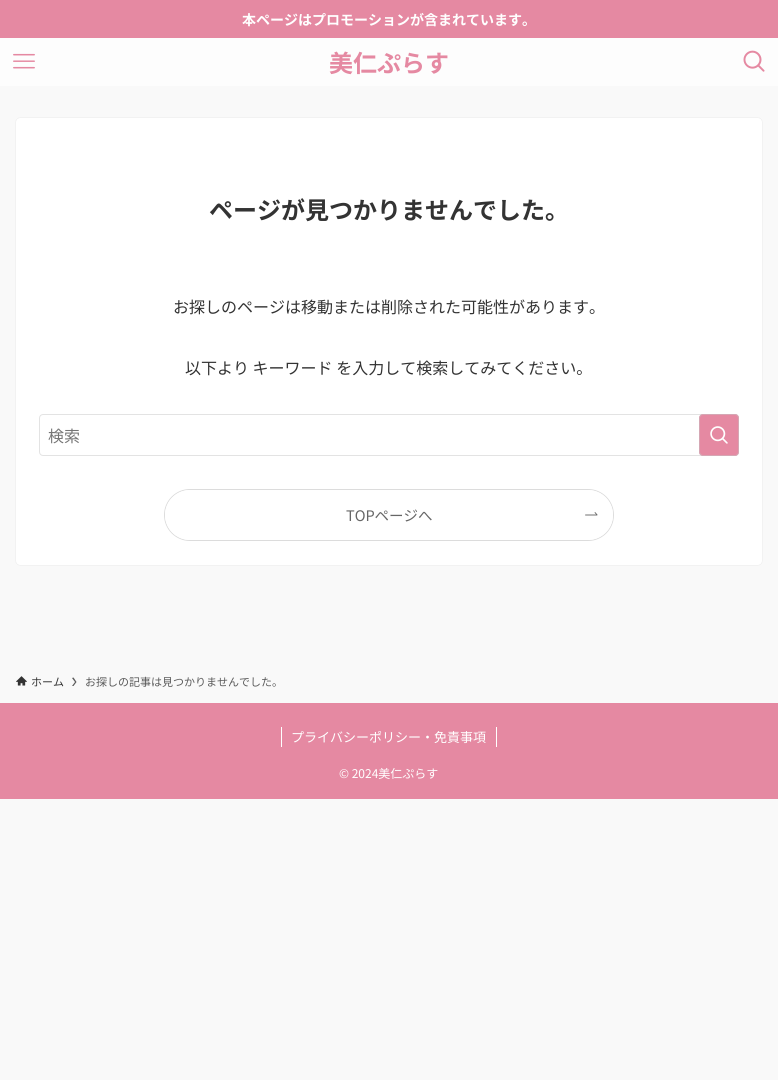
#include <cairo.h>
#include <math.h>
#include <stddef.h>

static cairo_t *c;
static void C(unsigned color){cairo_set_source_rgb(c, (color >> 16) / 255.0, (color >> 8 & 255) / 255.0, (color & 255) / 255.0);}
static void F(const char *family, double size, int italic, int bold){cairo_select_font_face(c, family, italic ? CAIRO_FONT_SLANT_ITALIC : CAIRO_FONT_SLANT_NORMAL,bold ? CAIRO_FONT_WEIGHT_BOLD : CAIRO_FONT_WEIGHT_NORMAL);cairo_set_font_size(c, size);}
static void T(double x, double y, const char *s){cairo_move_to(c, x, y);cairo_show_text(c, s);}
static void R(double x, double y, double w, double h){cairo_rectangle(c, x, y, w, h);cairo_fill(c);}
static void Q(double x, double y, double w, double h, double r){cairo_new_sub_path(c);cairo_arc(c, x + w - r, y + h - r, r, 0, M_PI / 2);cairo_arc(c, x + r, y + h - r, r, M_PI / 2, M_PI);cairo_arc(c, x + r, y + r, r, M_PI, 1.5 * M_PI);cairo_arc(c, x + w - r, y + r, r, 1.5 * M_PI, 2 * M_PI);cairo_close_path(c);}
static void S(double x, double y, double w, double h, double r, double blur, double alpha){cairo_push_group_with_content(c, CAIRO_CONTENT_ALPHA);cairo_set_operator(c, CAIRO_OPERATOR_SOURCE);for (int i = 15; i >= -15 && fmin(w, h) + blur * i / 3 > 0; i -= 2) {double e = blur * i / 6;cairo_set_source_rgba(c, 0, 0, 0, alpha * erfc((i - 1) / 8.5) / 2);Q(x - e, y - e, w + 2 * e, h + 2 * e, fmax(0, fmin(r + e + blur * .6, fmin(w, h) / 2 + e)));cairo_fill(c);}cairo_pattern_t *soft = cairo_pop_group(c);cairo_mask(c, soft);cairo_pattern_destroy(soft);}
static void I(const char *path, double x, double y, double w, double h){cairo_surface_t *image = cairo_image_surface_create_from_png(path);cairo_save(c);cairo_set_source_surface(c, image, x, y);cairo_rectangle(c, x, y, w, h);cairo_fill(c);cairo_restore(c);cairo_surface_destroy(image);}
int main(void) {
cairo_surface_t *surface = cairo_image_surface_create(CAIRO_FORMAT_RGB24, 778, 1080);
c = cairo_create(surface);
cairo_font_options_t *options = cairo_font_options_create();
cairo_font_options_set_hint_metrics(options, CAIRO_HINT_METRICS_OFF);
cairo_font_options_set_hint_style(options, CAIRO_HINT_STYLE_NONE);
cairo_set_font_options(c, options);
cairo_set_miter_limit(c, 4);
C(0xf9f9f9);
cairo_paint(c);
C(0xe589a2);
R(0,0,778,38);
F("Noto Sans JP",14,0,1);
C(0xffffff);
T(242,25,"本ページはプロモーションが含まれています。");
C(0xfdfdfd);
R(0,38,778,48);
I("1.png",13,53,22,16);
F("Noto Sans JP",24,0,1);
C(0xe589a2);
T(329,72,"美仁ぷらす");
I("2.png",743,50,22,22);
C(0x000000);
S(16,118,746,447,4,.5,.12);
C(0xffffff);
Q(16,118,746,447,4);
cairo_fill(c);
C(0x333333);
T(209,219,"ページが見つかりませんでした。");
F("Noto Sans JP",16,0,0);
T(173,313,"お探しのページは移動または削除された可能性があります。");
T(185,374,"以下より キーワード を入力して検索してみてください。");
Q(39.5,414.5,699,41,3.5);
C(0xe3e3e3);
cairo_set_line_width(c,1);
cairo_stroke(c);
C(0x757575);
T(48,442,"検索");
C(0xe589a2);
Q(699,414,40,42,4);
cairo_fill(c);
Q(699.5,414.5,39,41,3.5);
cairo_set_source_rgba(c,0.78,0.78,0.78,0.5);
cairo_stroke(c);
I("3.png",710,426,18,18);
Q(164.5,489.5,449,51,25.5);
C(0xdcdcdc);
cairo_stroke(c);
C(0xffffff);
Q(165,490,448,50,25);
cairo_fill(c);
F("Noto Sans JP",14.5,0,0);
C(0x666666);
T(346,521,"TOPページへ");
I("4.png",585,512,13,4);
I("5.png",16,676,11,10);
F("Noto Sans JP",11,0,0);
C(0x333333);
T(31,686,"ホーム");
C(0x5b5b5b);
cairo_new_path(c);
cairo_move_to(c,73.5,677.5);
cairo_line_to(c,72,678);
cairo_line_to(c,75,682);
cairo_line_to(c,72,686);
cairo_line_to(c,73.5,686);
cairo_line_to(c,76.5,682);
cairo_close_path(c);
cairo_fill(c);
T(85,686,"お探しの記事は見つかりませんでした。");
C(0xe589a2);
R(0,703,778,96);
C(0xffffff);
R(496,727,1,20);
R(281,727,1,20);
F("Noto Sans JP",13,0,0);
T(291,742,"プライバシーポリシー・免責事項");
F("Noto Sans JP",12,0,0);
T(339,778,"© 2024美仁ぷらす");
cairo_surface_write_to_png(surface, "o.png");
cairo_font_options_destroy(options);
cairo_destroy(c);
cairo_surface_destroy(surface);
return 0;
}
